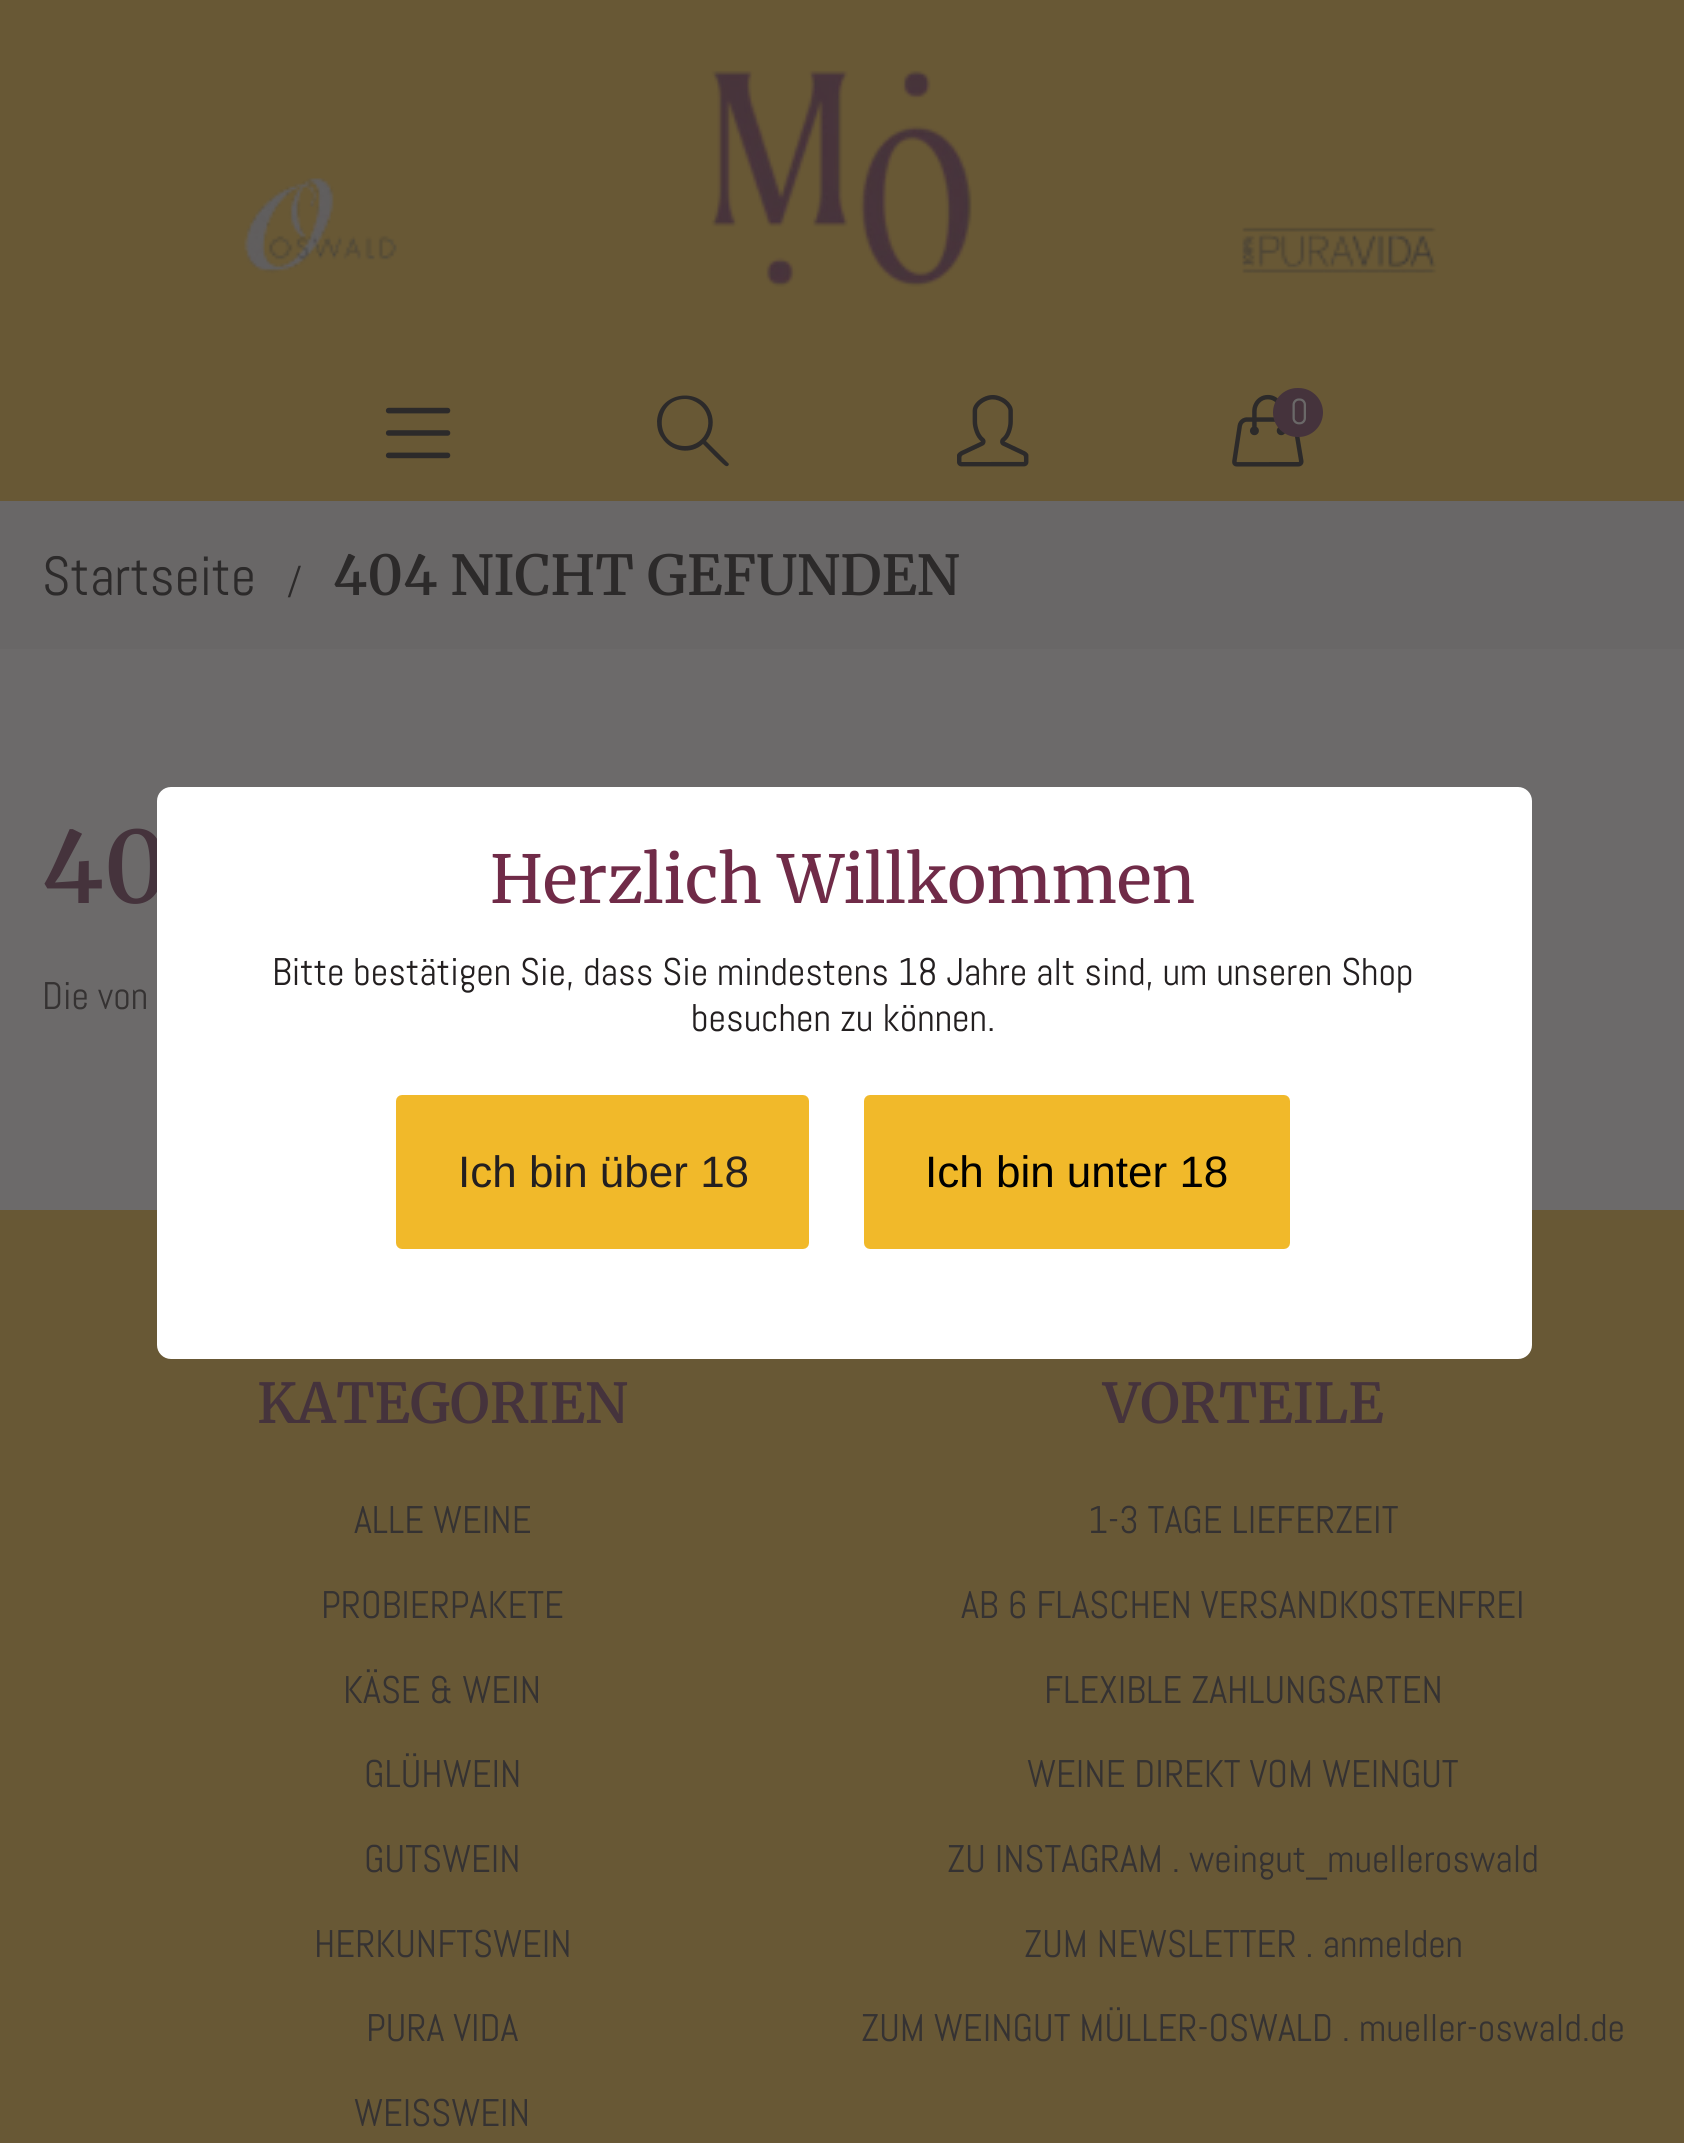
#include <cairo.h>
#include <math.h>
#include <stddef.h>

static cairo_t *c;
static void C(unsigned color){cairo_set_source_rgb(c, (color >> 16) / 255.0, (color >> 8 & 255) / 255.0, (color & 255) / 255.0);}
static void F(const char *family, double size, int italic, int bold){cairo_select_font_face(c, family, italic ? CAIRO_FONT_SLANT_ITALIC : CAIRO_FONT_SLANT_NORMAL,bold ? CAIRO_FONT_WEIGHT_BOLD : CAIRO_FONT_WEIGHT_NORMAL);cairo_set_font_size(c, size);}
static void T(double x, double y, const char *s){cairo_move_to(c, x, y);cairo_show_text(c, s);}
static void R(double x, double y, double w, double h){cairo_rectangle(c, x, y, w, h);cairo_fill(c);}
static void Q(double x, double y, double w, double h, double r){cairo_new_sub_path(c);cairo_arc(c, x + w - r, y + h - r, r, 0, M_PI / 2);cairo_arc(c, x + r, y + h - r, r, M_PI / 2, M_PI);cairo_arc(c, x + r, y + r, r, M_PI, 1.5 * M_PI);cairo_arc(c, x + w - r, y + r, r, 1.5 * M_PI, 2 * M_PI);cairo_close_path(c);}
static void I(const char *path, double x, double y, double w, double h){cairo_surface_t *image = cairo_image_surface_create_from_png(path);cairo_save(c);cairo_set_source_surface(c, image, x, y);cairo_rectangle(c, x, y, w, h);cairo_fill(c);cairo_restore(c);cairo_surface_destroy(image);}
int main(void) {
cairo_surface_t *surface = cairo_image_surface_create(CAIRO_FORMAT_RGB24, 1684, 2143);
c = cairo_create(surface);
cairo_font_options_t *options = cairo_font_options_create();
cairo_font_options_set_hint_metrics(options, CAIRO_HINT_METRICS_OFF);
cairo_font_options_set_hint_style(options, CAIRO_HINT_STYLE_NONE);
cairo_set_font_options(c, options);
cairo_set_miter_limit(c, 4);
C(0x6c6a6a);
cairo_paint(c);
C(0x685835);
R(0,0,1684,501);
I("1.png",244,70,1193,217);
I("2.png",385,407,66,52);
C(0x2c2a2a);
cairo_new_path(c);
cairo_move_to(c,728,463);
cairo_line_to(c,706,441);
cairo_curve_to(c,712,434,714,424,712,416);
cairo_curve_to(c,704,386,659,390,657,421);
cairo_curve_to(c,657,427,658,433,662,438);
cairo_curve_to(c,671,452,691,455,703,444);
cairo_curve_to(c,706,447,724,466,726,466);
cairo_curve_to(c,728,467,730,464,728,463);
cairo_close_path(c);
cairo_move_to(c,685,446);
cairo_curve_to(c,654,446,654,399,685,399);
cairo_curve_to(c,690,399,695,401,699,404);
cairo_curve_to(c,717,418,707,446,685,446);
cairo_close_path(c);
cairo_fill(c);
I("3.png",957,395,72,72);
I("4.png",1232,394,72,73);
C(0x45333c);
Q(1273,388,50,49,24.5);
cairo_fill(c);
F("Abel",36,0,0);
C(0x6a6868);
T(1290,424,"0");
C(0x696767);
R(0,501,1684,148);
F("Abel",55,0,0);
C(0x2c2a2a);
T(42,595,"Startseite");
F("Abel",38.5,0,0);
T(287,595,"/");
F("Merriweather SemiBold",55,0,0);
T(333,595,"404 NICHT GEFUNDEN");
F("Merriweather SemiBold",99,0,0);
C(0x45333c);
T(42,903,"40");
F("Abel",38.5,0,0);
C(0x353232);
T(42,1009,"Die von");
C(0x685835);
R(0,1210,1684,933);
F("Merriweather SemiBold",55,0,0);
C(0x45333c);
T(257,1423,"KATEGORIEN");
F("Abel",38.5,0,0);
C(0x353232);
T(354,1533,"ALLE WEINE");
T(321,1618,"PROBIERPAKETE");
T(343,1703,"KÄSE & WEIN");
T(364,1787,"GLÜHWEIN");
T(364,1872,"GUTSWEIN");
T(314,1957,"HERKUNFTSWEIN");
T(366,2041,"PURA VIDA");
T(354,2126,"WEISSWEIN");
F("Merriweather SemiBold",55,0,0);
C(0x45333c);
T(1103,1423,"VORTEILE");
F("Abel",38.5,0,0);
C(0x353232);
T(1088,1533,"1-3 TAGE LIEFERZEIT");
T(961,1618,"AB 6 FLASCHEN VERSANDKOSTENFREI");
T(1044,1703,"FLEXIBLE ZAHLUNGSARTEN");
T(1027,1787,"WEINE DIREKT VOM WEINGUT");
T(947,1872,"ZU INSTAGRAM . weingut_muelleroswald");
T(1024,1957,"ZUM NEWSLETTER . anmelden");
T(861,2041,"ZUM WEINGUT MÜLLER-OSWALD . mueller-oswald.de");
C(0xffffff);
Q(157,787,1375,572,14);
cairo_fill(c);
F("Merriweather",66,0,0);
C(0x702b48);
T(490,903,"Herzlich Willkommen");
F("Abel",38.5,0,0);
C(0x231f20);
T(272,985,"Bitte bestätigen Sie, dass Sie mindestens 18 Jahre alt sind, um unseren Shop");
T(691,1031,"besuchen zu können.");
C(0xf1b92a);
Q(399,1098,407,148,3);
cairo_fill_preserve(c);
cairo_set_line_width(c,6);
cairo_stroke(c);
F("Liberation Sans",44,0,0);
C(0x231f20);
T(458,1187,"Ich bin über 18");
C(0xf1b92a);
Q(867,1098,420,148,3);
cairo_fill_preserve(c);
cairo_stroke(c);
C(0x000000);
T(925,1187,"Ich bin unter 18");
cairo_surface_write_to_png(surface, "o.png");
cairo_font_options_destroy(options);
cairo_destroy(c);
cairo_surface_destroy(surface);
return 0;
}
